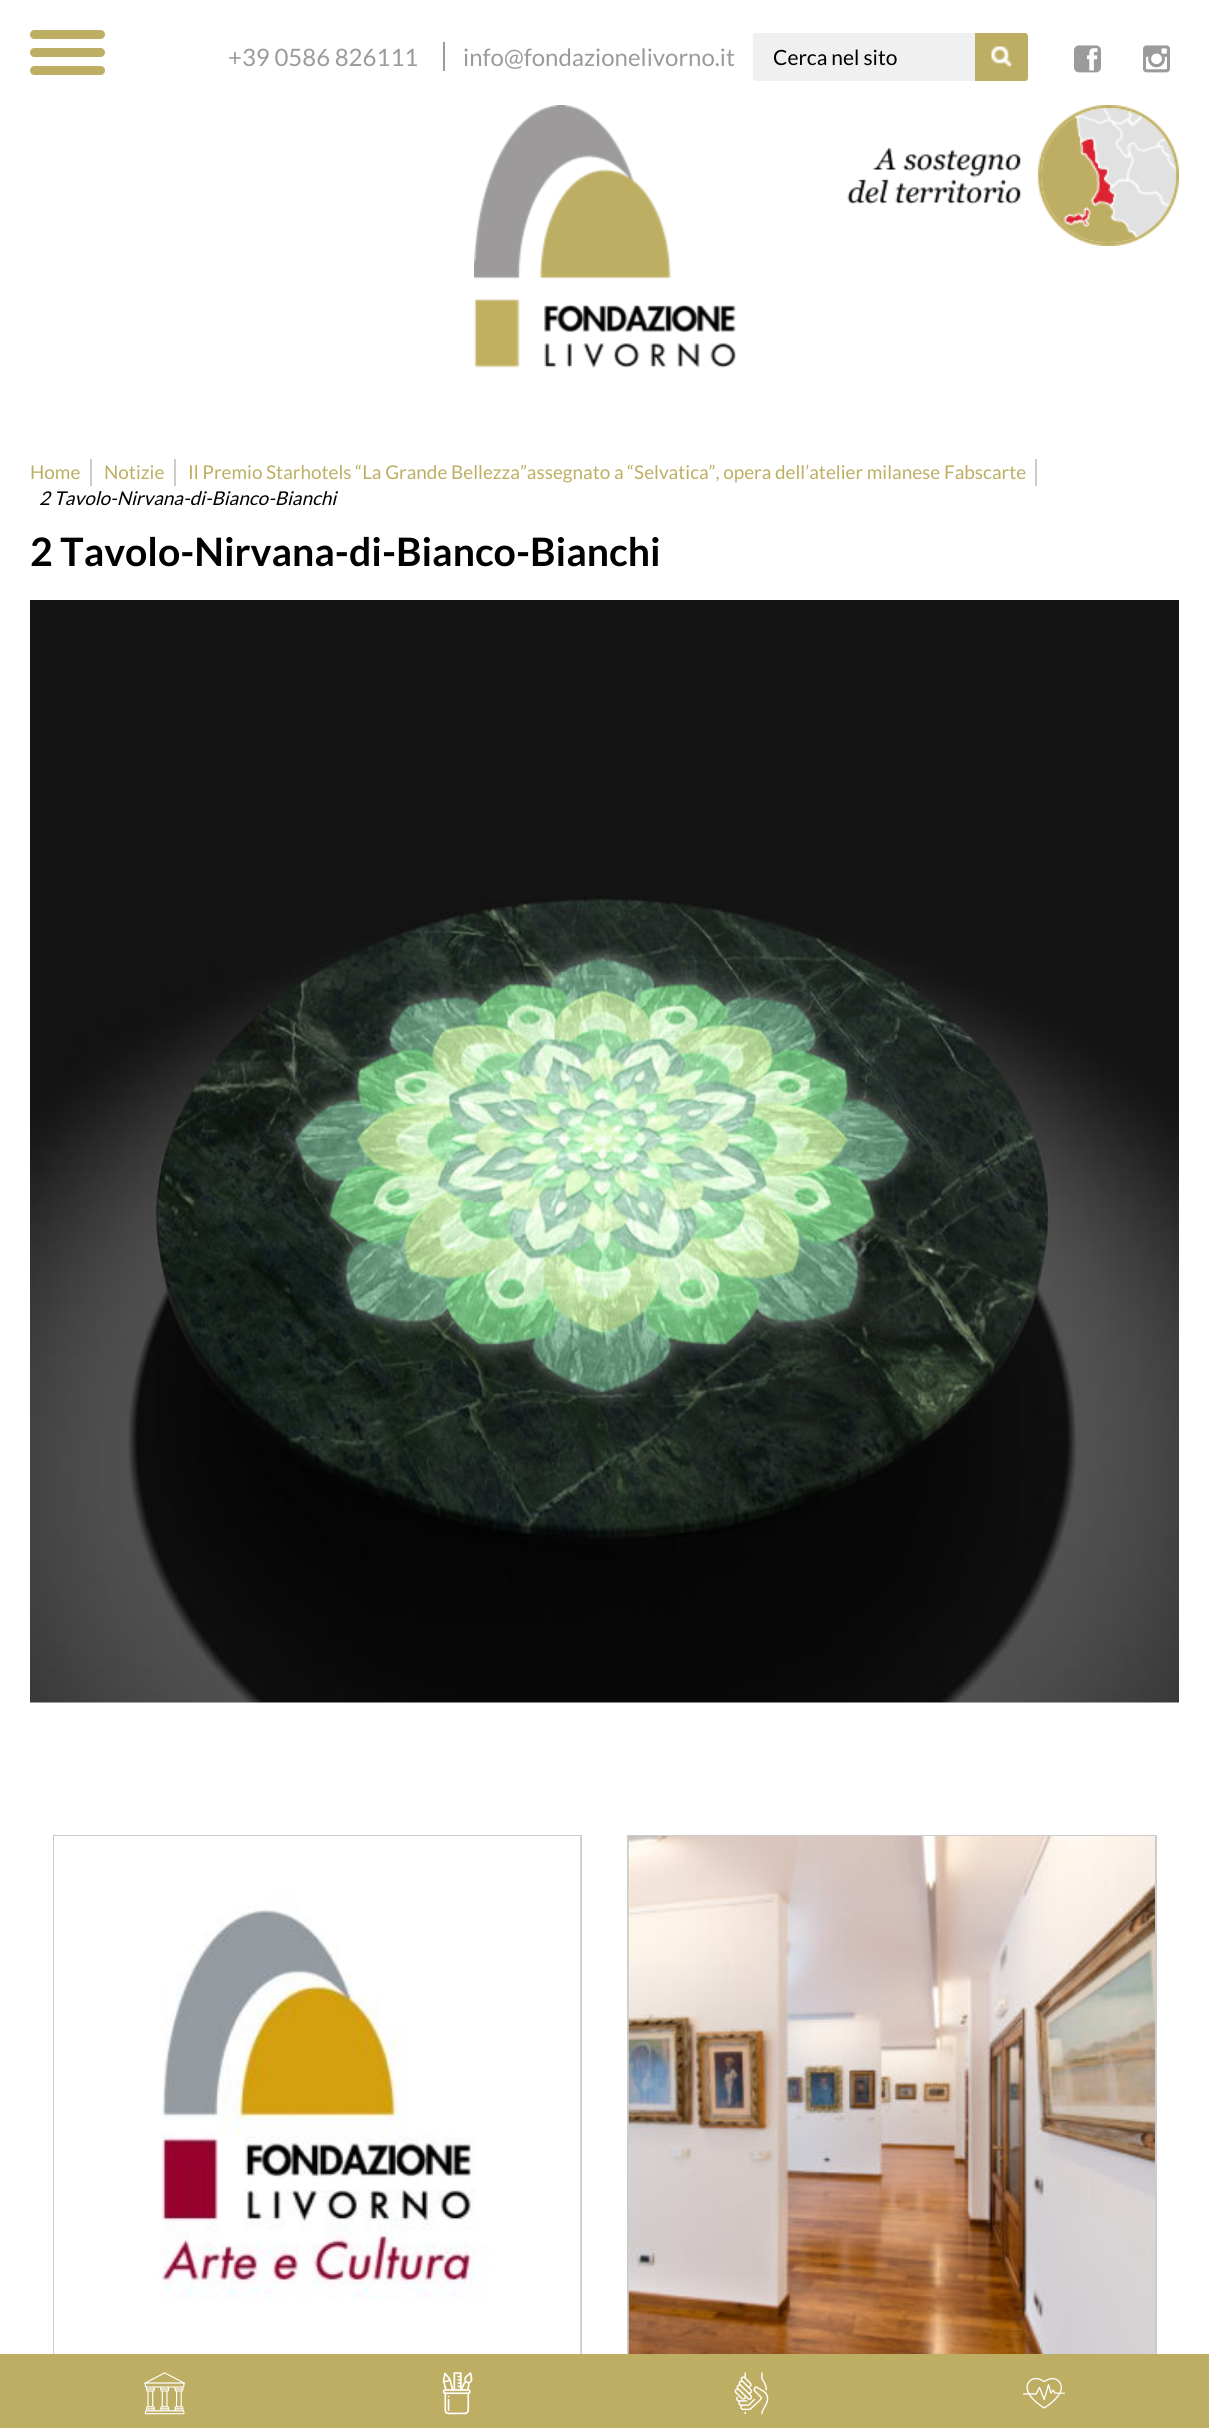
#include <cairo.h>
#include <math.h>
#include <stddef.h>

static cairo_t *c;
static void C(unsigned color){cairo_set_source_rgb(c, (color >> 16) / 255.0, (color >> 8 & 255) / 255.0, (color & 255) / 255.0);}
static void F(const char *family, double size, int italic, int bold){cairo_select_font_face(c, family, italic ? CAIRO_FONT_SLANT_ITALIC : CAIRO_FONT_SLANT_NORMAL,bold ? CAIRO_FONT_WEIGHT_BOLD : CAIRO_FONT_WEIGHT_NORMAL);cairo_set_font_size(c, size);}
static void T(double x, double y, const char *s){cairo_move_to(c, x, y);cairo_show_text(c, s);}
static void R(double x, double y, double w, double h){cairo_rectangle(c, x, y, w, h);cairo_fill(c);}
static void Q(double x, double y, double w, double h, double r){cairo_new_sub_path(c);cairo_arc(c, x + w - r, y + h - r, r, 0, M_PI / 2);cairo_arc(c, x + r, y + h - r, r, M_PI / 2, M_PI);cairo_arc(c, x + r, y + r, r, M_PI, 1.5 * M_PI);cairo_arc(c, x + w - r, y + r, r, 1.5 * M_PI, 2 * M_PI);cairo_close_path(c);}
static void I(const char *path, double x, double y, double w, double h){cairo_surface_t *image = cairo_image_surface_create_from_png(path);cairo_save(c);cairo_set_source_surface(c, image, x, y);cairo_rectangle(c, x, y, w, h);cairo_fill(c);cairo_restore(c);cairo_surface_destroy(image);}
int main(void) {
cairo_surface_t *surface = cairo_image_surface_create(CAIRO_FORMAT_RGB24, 1209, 2428);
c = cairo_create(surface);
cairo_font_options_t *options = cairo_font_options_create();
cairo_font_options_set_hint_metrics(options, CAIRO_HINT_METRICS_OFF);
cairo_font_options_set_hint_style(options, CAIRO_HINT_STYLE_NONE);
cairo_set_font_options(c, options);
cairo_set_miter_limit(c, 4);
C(0xffffff);
cairo_paint(c);
C(0xbeae63);
Q(30,30,75,9,4.5);
cairo_fill(c);
Q(30,48,75,9,4.5);
cairo_fill(c);
Q(30,66,75,9,4.5);
cairo_fill(c);
F("Lato",24,0,0);
C(0x9c9a9b);
T(228,66,"+39 0586 826111");
T(463,66,"info@fondazionelivorno.it");
R(443,42,2,29);
C(0xf0f0f0);
Q(754,34,273,46,2);
cairo_fill_preserve(c);
cairo_stroke(c);
F("Lato",21,0,0);
C(0x000000);
T(773,65,"Cerca nel sito");
C(0xbeae63);
cairo_new_path(c);
cairo_move_to(c,975,33);
cairo_line_to(c,1025,33);
cairo_curve_to(c,1026.5,33,1028,34.5,1028,36);
cairo_line_to(c,1028,78);
cairo_curve_to(c,1028,79.5,1026.5,81,1025,81);
cairo_line_to(c,975,81);
cairo_close_path(c);
cairo_fill(c);
I("1.png",991,46,21,21);
I("2.png",1074,45,27,28);
I("3.png",1143,45,27,28);
I("4.png",474,105,262,263);
I("5.png",847,105,332,141);
C(0xcccccc);
R(90,459,2,27);
F("Lato",18.95,0,0);
C(0xbeae63);
T(30,479,"Home");
C(0xcccccc);
R(174,459,2,27);
C(0xbeae63);
T(104,479,"Notizie");
C(0xcccccc);
R(1035,459,2,27);
C(0xbeae63);
T(188,479,"Il Premio Starhotels “La Grande Bellezza”assegnato a “Selvatica”, opera dell’atelier milanese Fabscarte");
F("Lato",18.95,1,0);
C(0x000000);
T(39,505,"2 Tavolo-Nirvana-di-Bianco-Bianchi");
F("Lato",39.2,0,1);
T(30,566,"2 Tavolo-Nirvana-di-Bianco-Bianchi");
I("6.png",30,600,1149,1103);
cairo_rectangle(c,54,1836,527,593);
C(0xcccccc);
cairo_stroke(c);
I("7.png",54,1836,527,518);
cairo_rectangle(c,628,1836,528,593);
cairo_stroke(c);
I("8.png",628,1836,527,518);
C(0xbeae63);
R(0,2354,1209,74);
I("9.png",144,2372,42,43);
I("10.png",442,2372,31,43);
I("11.png",734,2372,35,43);
I("12.png",1023,2377,42,32);
cairo_surface_write_to_png(surface, "o.png");
cairo_font_options_destroy(options);
cairo_destroy(c);
cairo_surface_destroy(surface);
return 0;
}
